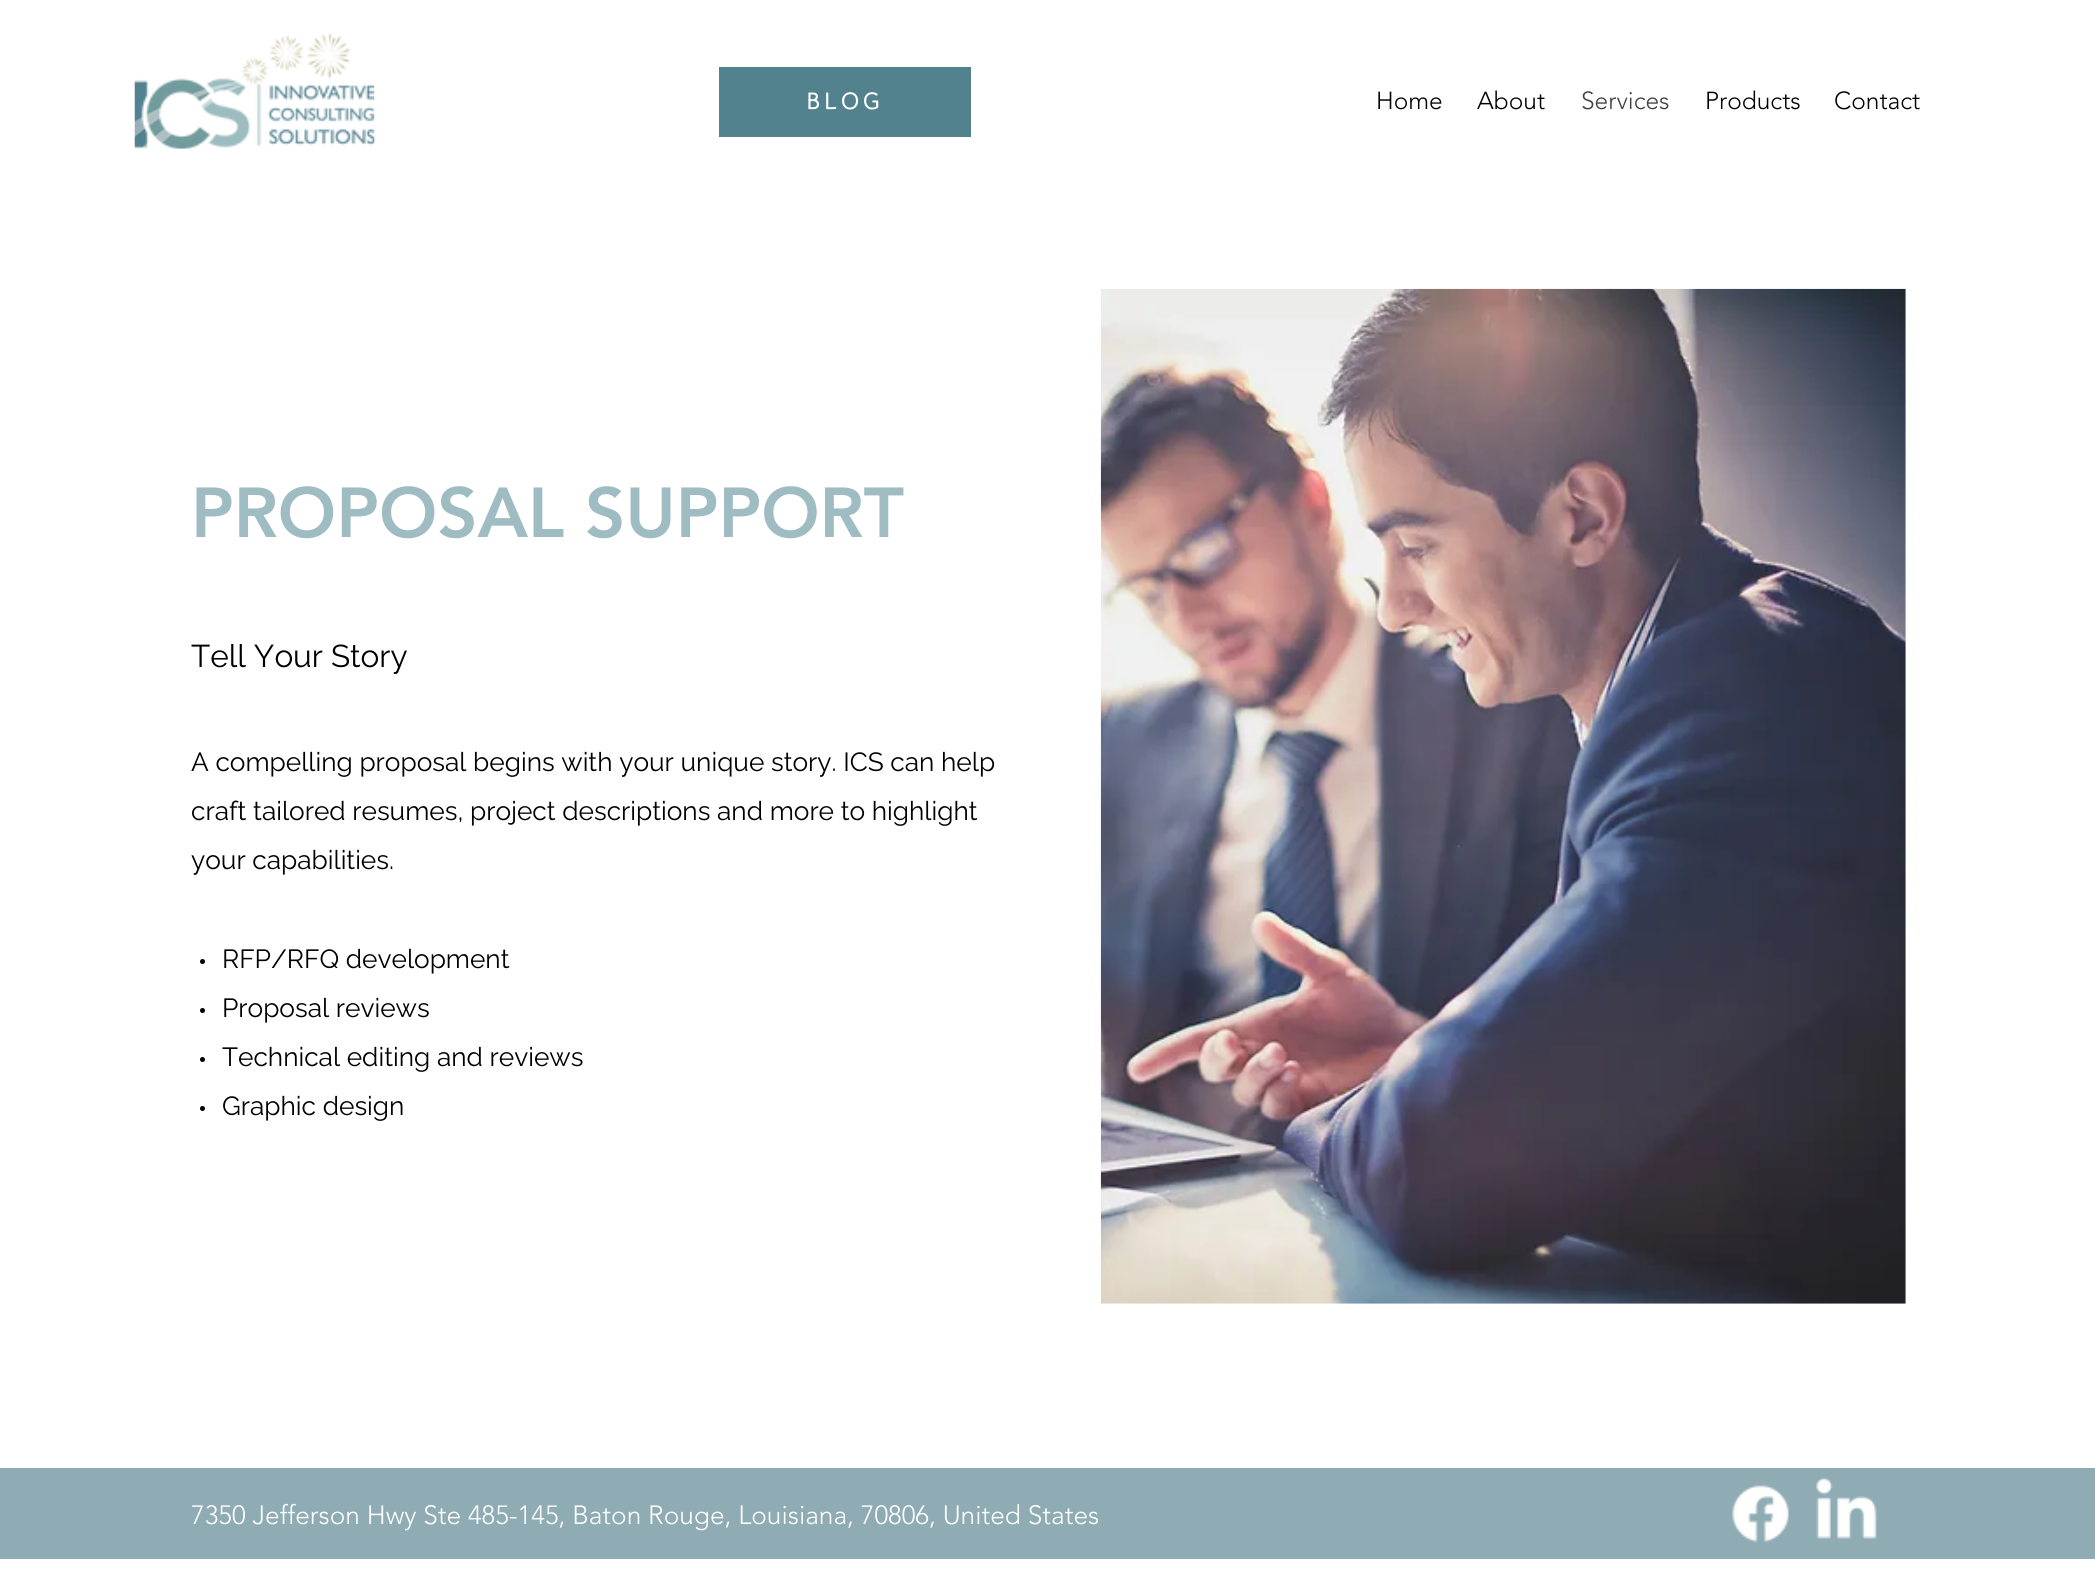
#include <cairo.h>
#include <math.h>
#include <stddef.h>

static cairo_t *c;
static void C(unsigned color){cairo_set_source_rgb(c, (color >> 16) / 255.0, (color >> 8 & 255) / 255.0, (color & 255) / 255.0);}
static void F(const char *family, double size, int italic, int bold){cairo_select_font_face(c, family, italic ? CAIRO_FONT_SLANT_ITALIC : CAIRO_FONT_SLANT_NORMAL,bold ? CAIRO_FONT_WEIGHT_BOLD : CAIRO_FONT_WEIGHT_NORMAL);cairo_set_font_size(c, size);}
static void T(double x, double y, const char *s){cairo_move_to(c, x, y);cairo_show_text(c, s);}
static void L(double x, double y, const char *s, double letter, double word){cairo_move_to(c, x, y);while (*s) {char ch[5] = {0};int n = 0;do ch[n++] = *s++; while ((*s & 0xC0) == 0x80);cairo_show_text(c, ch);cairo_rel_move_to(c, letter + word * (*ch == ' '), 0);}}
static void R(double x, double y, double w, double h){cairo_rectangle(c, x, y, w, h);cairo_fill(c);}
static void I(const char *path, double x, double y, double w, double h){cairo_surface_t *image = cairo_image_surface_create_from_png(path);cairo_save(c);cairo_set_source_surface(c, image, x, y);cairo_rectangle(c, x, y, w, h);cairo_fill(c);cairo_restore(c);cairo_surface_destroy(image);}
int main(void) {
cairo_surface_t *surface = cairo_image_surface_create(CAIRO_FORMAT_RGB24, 2095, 1569);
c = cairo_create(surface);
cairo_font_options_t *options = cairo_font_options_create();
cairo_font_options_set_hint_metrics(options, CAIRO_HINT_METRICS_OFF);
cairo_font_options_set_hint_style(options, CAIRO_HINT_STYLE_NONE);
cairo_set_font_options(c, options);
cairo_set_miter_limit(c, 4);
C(0xffffff);
cairo_paint(c);
I("1.png",134,33,241,116);
C(0x53828f);
R(719,67,252,70);
F("Gowun Dodum",23,0,1);
C(0xffffff);
L(806,111,"BLOG",4.5,0);
F("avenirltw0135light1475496 Light",24.5,0,0);
C(0x000000);
T(1376,109,"Home");
T(1477,109,"About");
C(0x404040);
T(1581,109,"Services");
C(0x000000);
T(1705,109,"Products");
T(1834,109,"Contact");
F("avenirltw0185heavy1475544 Black",70,0,0);
C(0x9fbcc2);
T(191,537,"PROPOSAL SUPPORT");
F("Raleway",31.5,0,0);
C(0x000000);
T(191,667,"Tell Your Story");
F("Raleway",26.25,0,0);
T(191,771,"A compelling proposal begins with your unique story. ICS can help");
T(191,820,"craft tailored resumes, project descriptions and more to highlight");
T(191,869,"your capabilities.");
cairo_new_path(c);
cairo_arc(c,202.5,961.5,2.5,0,2 * M_PI);
cairo_fill(c);
T(222,968,"RFP/RFQ development");
cairo_new_path(c);
cairo_arc(c,202.5,1010.5,2.5,0,2 * M_PI);
cairo_fill(c);
T(222,1017,"Proposal reviews");
cairo_new_path(c);
cairo_arc(c,202.5,1059.5,2.5,0,2 * M_PI);
cairo_fill(c);
T(222,1066,"Technical editing and reviews");
cairo_new_path(c);
cairo_arc(c,202.5,1108.5,2.5,0,2 * M_PI);
cairo_fill(c);
T(222,1115,"Graphic design");
I("2.png",1100,288,806,1016);
C(0x8facb4);
R(0,1468,2095,91);
F("avenirltw0135light1475496 Light",26.25,0,0);
C(0xffffff);
T(191,1524,"7350 Jefferson Hwy Ste 485-145, Baton Rouge, Louisiana, 70806, United States");
I("3.png",1732,1485,57,58);
I("4.png",1816,1478,61,61);
cairo_surface_write_to_png(surface, "o.png");
cairo_font_options_destroy(options);
cairo_destroy(c);
cairo_surface_destroy(surface);
return 0;
}
